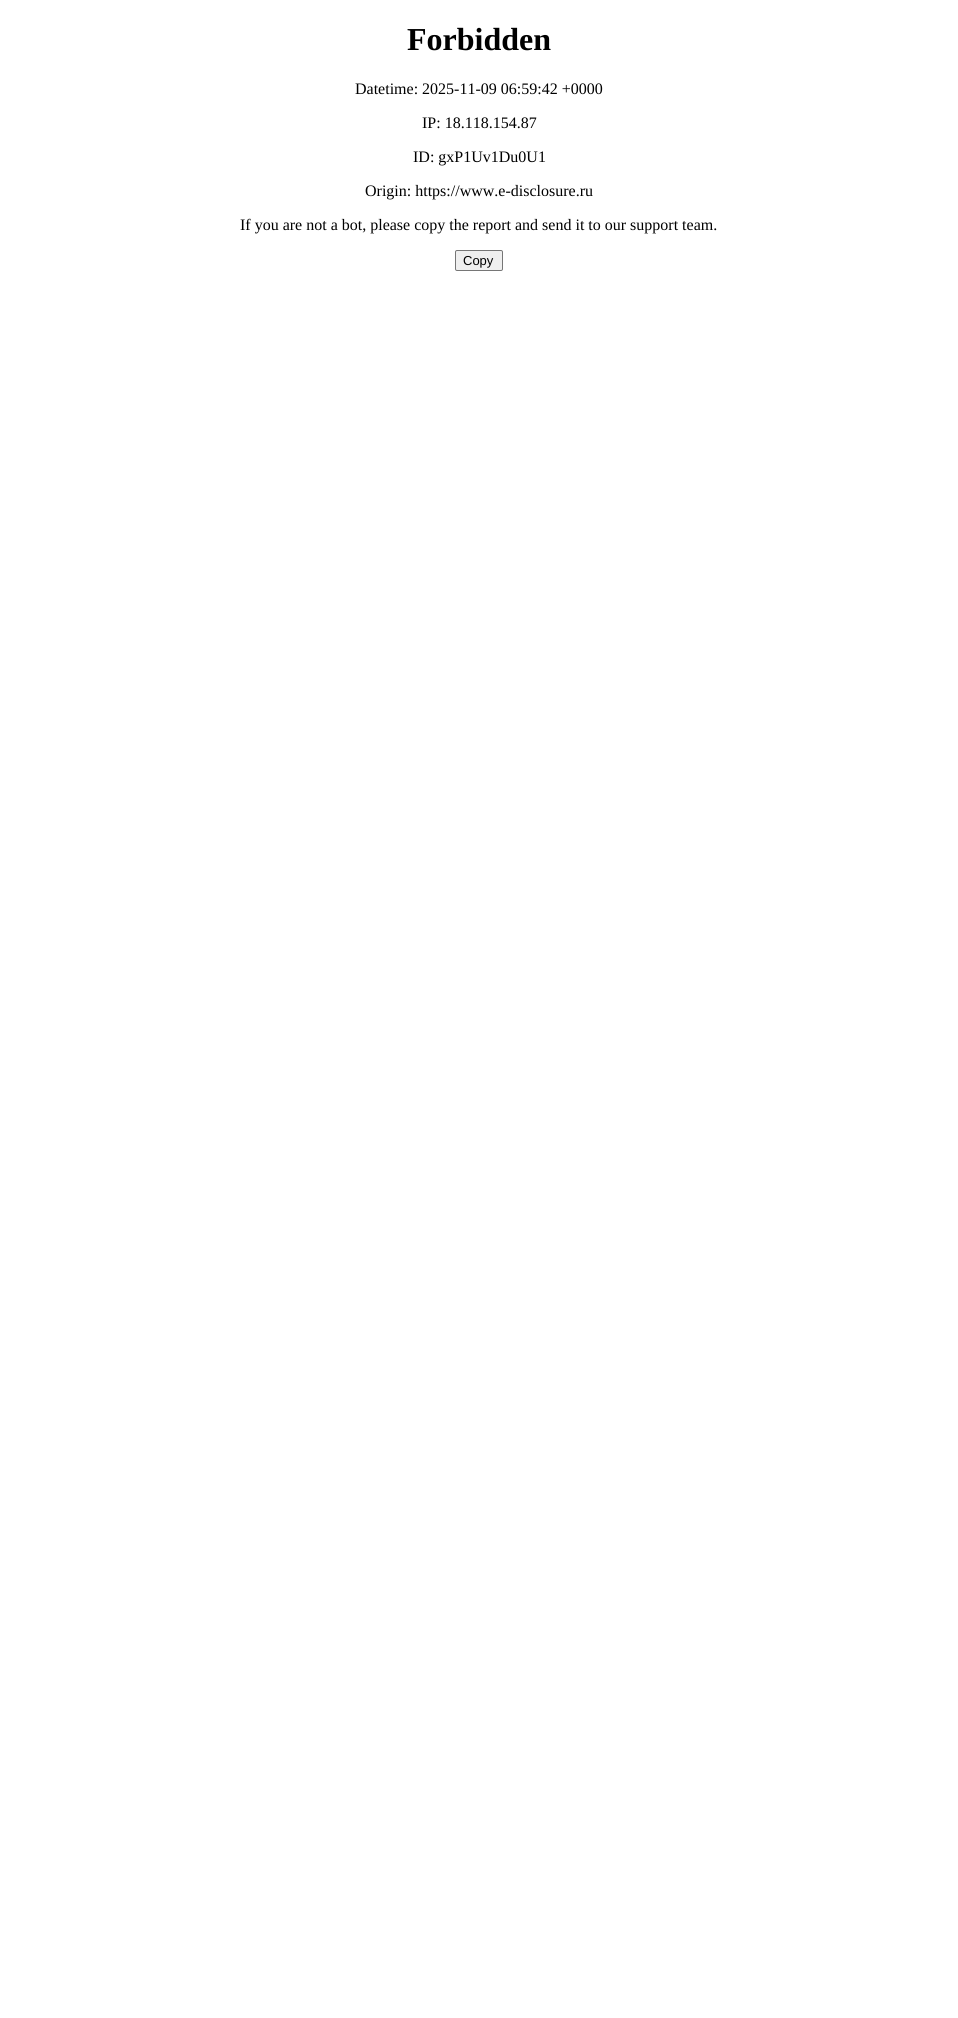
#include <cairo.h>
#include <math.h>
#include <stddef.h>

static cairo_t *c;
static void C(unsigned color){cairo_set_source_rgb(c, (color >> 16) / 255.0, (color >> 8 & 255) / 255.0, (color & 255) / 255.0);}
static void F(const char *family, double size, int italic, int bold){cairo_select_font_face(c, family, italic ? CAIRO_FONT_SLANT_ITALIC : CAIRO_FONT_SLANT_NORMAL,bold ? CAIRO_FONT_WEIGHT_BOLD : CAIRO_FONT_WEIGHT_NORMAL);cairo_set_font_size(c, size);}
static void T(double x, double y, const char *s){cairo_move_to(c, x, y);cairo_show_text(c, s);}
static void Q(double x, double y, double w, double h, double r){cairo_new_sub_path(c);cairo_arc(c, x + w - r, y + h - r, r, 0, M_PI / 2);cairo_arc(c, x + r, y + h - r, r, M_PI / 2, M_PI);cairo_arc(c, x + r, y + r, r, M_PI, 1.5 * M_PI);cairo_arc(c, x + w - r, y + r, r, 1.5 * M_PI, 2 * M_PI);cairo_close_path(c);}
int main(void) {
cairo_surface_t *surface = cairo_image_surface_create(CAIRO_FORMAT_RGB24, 958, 2018);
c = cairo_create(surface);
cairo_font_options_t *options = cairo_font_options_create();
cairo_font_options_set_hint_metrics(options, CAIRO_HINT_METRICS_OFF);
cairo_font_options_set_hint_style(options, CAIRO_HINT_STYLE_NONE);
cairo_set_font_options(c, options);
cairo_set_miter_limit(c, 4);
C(0xffffff);
cairo_paint(c);
F("Liberation Serif",32,0,1);
C(0x000000);
T(407,50,"Forbidden");
F("Liberation Serif",16,0,0);
T(355,94,"Datetime: 2025-11-09 06:59:42 +0000");
T(422,128,"IP: 18.118.154.87");
T(413,162,"ID: gxP1Uv1Du0U1");
T(365,196,"Origin: https://www.e-disclosure.ru");
T(240,230,"If you are not a bot, please copy the report and send it to our support team.");
C(0xefefef);
Q(455.5,250.5,47,20,1.5);
cairo_fill_preserve(c);
C(0x767676);
cairo_set_line_width(c,1);
cairo_stroke(c);
F("Liberation Sans",13,0,0);
C(0x000000);
T(463,265,"Copy");
cairo_surface_write_to_png(surface, "o.png");
cairo_font_options_destroy(options);
cairo_destroy(c);
cairo_surface_destroy(surface);
return 0;
}
